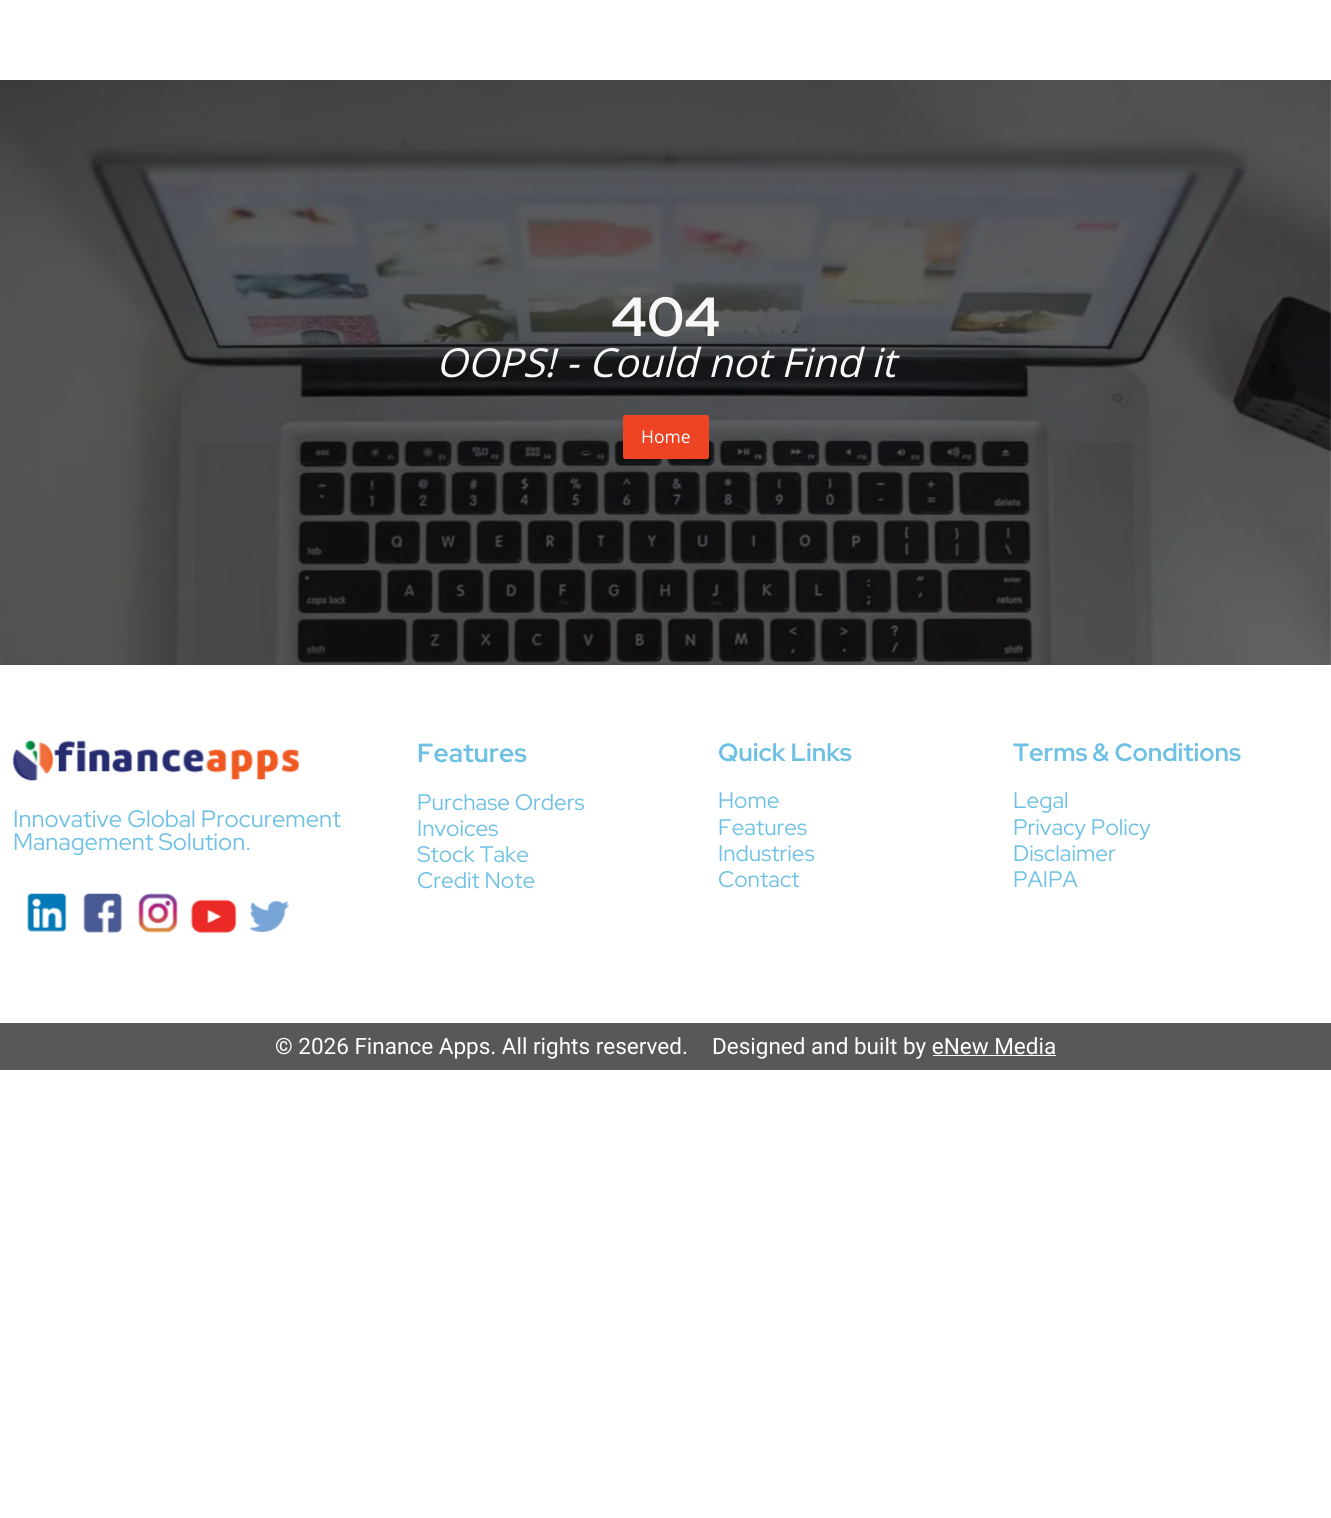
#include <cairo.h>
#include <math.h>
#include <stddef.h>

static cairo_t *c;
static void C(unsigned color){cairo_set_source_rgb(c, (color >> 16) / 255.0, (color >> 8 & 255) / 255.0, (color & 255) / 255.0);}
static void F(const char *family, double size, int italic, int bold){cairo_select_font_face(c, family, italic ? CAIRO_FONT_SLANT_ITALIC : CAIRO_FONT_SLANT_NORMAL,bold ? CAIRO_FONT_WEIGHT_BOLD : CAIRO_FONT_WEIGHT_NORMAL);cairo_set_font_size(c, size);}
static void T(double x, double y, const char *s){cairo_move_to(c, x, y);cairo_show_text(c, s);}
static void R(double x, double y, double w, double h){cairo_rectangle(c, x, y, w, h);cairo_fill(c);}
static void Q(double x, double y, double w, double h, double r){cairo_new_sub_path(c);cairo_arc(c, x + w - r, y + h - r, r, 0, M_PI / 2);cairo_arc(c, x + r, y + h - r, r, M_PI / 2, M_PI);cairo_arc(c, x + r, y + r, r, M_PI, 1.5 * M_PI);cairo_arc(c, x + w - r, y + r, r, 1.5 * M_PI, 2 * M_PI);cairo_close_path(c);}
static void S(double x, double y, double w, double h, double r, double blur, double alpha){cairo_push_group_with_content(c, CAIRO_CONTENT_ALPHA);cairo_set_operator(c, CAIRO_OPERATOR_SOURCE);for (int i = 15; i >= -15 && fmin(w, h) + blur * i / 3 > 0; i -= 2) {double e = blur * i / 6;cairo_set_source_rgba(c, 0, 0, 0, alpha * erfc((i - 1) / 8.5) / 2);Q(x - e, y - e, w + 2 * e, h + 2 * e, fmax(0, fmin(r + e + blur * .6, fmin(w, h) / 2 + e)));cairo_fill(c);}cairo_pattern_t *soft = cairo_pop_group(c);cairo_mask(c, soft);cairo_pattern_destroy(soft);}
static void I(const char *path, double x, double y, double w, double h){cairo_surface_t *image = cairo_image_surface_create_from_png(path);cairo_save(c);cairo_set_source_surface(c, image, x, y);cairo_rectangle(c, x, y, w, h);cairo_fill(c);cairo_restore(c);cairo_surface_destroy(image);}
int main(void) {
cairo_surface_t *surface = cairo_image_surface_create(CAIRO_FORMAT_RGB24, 1331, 1518);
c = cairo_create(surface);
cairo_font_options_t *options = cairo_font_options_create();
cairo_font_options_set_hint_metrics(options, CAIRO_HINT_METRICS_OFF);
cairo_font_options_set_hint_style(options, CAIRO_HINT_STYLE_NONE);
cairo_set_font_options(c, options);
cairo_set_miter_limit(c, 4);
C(0xffffff);
cairo_paint(c);
cairo_save(c);
cairo_rectangle(c,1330,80,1,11);
cairo_clip(c);
C(0x282a2c);
S(0,0,1331,80,0,6,1);
cairo_restore(c);
I("1.png",0,80,1331,585);
F("Red Hat Display",55,0,1);
C(0xf7f7f7);
T(611,336,"404");
F("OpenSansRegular",40,1,0);
T(436,377,"OOPS! - Could not Find it");
C(0xef4423);
Q(623,415,86,44,2.5);
cairo_fill(c);
F("OpenSansRegular",17.5,0,0);
C(0xffffff);
T(641,443,"Home");
I("2.png",12,740,287,41);
F("Red Hat Display",23.75,0,0);
C(0x6ec1e4);
T(13,827,"Innovative Global Procurement");
T(13,850,"Management Solution.");
I("3.png",27,893,40,39);
I("4.png",83,893,39,40);
I("5.png",138,893,40,40);
I("6.png",190,899,47,34);
I("7.png",249,900,41,33);
F("Red Hat Display",26.25,0,1);
T(417,762,"Features");
F("Red Hat Display",22.5,0,0);
T(417,810,"Purchase Orders");
T(417,836,"Invoices");
T(417,862,"Stock Take");
T(417,888,"Credit Note");
F("Red Hat Display",25,0,1);
T(718,761,"Quick Links");
F("Red Hat Display",22.5,0,0);
T(718,808,"Home");
T(718,835,"Features");
T(718,861,"Industries");
T(718,887,"Contact");
F("Red Hat Display",25,0,1);
T(1013,761,"Terms & Conditions");
F("Red Hat Display",22.5,0,0);
T(1013,808,"Legal");
T(1013,835,"Privacy Policy");
T(1013,861,"Disclaimer");
T(1013,887,"PAIPA");
C(0x585858);
R(0,1023,1331,47);
F("Roboto",22.5,0,0);
C(0xffffff);
T(275,1054,"© 2026 Finance Apps. All rights reserved.");
T(712,1054,"Designed and built by eNew Media");
R(933,1055,123,1);
cairo_surface_write_to_png(surface, "o.png");
cairo_font_options_destroy(options);
cairo_destroy(c);
cairo_surface_destroy(surface);
return 0;
}
